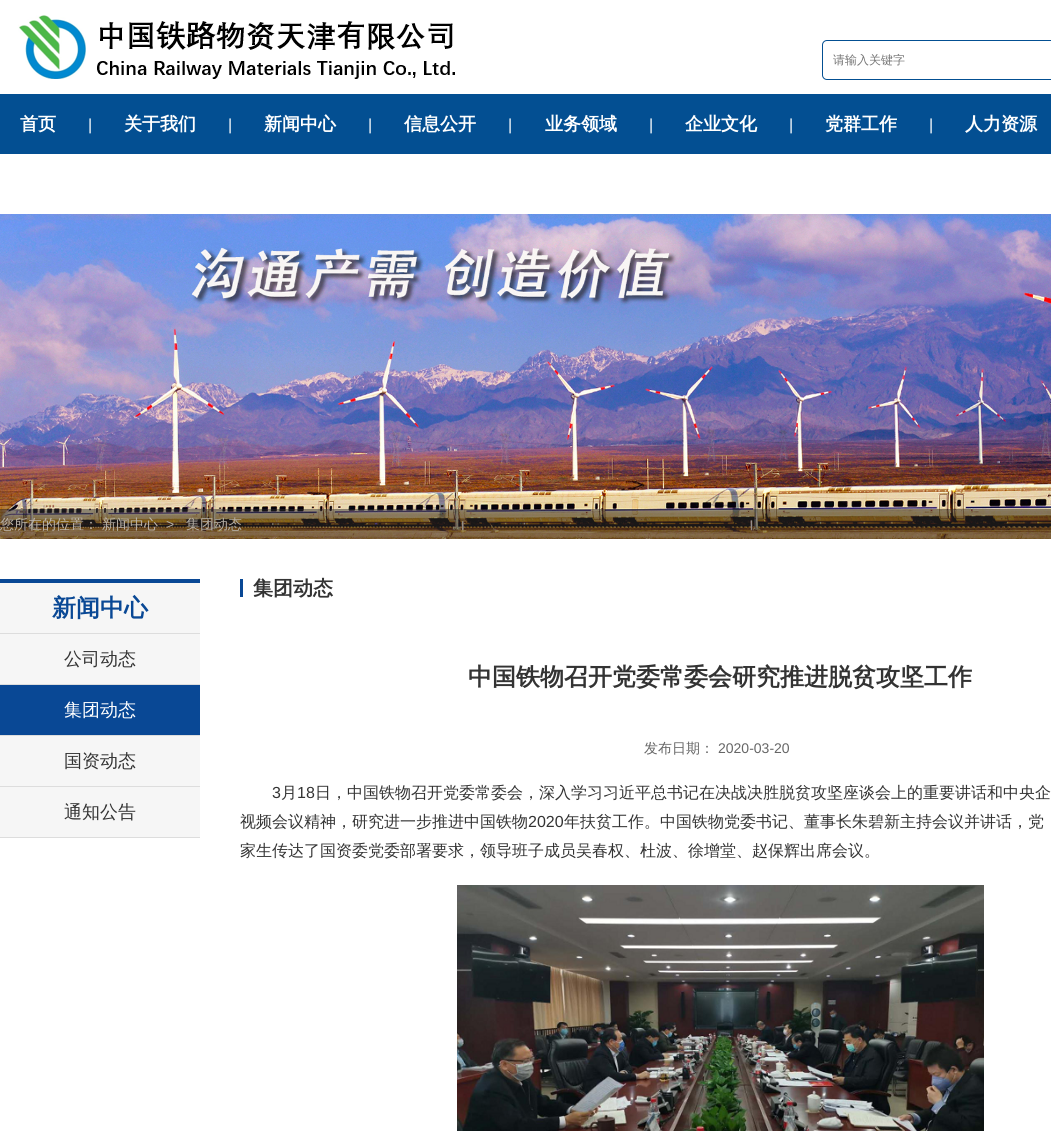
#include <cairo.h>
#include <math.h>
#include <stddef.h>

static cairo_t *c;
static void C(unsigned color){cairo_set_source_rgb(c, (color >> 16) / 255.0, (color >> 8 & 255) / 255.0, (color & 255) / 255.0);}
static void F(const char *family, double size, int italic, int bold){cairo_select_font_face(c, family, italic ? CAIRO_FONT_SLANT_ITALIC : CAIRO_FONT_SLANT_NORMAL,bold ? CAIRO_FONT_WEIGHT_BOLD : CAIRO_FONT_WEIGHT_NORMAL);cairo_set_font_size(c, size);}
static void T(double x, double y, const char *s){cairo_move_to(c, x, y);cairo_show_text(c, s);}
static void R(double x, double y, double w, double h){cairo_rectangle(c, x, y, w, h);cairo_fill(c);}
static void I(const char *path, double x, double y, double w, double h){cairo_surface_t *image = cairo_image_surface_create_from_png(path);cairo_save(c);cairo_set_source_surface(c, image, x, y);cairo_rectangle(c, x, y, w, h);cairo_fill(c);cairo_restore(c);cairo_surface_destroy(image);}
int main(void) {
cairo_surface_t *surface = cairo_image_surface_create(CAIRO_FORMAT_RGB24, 1051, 1131);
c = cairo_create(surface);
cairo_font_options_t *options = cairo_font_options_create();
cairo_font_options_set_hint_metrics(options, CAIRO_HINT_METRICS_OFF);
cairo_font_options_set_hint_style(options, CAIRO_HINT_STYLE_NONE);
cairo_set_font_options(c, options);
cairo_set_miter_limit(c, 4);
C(0xffffff);
cairo_paint(c);
I("1.png",18,15,437,64);
cairo_new_path(c);
cairo_move_to(c,827,40.5);
cairo_line_to(c,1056.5,40.5);
cairo_line_to(c,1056.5,79.5);
cairo_line_to(c,827,79.5);
cairo_curve_to(c,824.5,79.5,822.5,77.5,822.5,75);
cairo_line_to(c,822.5,45);
cairo_curve_to(c,822.5,42.5,824.5,40.5,827,40.5);
cairo_close_path(c);
C(0x034f92);
cairo_set_line_width(c,1);
cairo_stroke(c);
F("WenQuanYi Zen Hei Medium",12,0,0);
C(0x757575);
T(833,64,"请输入关键字");
C(0x034f92);
R(0,94,1051,60);
F("WenQuanYi Zen Hei",18,0,1);
C(0xffffff);
T(20,130,"首页");
F("Liberation Sans",16,0,0);
T(88,130,"|");
F("WenQuanYi Zen Hei",18,0,1);
T(124,130,"关于我们");
F("Liberation Sans",16,0,0);
T(228,130,"|");
F("WenQuanYi Zen Hei",18,0,1);
T(264,130,"新闻中心");
F("Liberation Sans",16,0,0);
T(368,130,"|");
F("WenQuanYi Zen Hei",18,0,1);
T(404,130,"信息公开");
F("Liberation Sans",16,0,0);
T(508,130,"|");
F("WenQuanYi Zen Hei",18,0,1);
T(545,130,"业务领域");
F("Liberation Sans",16,0,0);
T(649,130,"|");
F("WenQuanYi Zen Hei",18,0,1);
T(685,130,"企业文化");
F("Liberation Sans",16,0,0);
T(789,130,"|");
F("WenQuanYi Zen Hei",18,0,1);
T(825,130,"党群工作");
F("Liberation Sans",16,0,0);
T(929,130,"|");
F("WenQuanYi Zen Hei",18,0,1);
T(965,130,"人力资源");
I("2.png",0,214,1051,325);
cairo_set_source_rgba(c,0.176,0.176,0.176,0.49);
R(0,509,1051,30);
F("WenQuanYi Zen Hei Medium",14,0,0);
C(0xbbb4ab);
T(0,529,"您所在的位置：");
T(102,529,"新闻中心");
F("Liberation Sans",14,0,0);
C(0xb5afa6);
T(166,529,">");
F("WenQuanYi Zen Hei Medium",14,0,0);
T(186,529,"集团动态");
C(0xf6f6f6);
R(0,583,200,50);
C(0x094895);
R(0,579,200,4);
C(0xdddddd);
R(0,633,200,1);
F("WenQuanYi Zen Hei",24,0,1);
C(0x094895);
T(52,616,"新闻中心");
C(0xf6f6f6);
R(0,634,200,50);
C(0xdddddd);
R(0,684,200,1);
F("WenQuanYi Zen Hei Medium",18,0,0);
C(0x333333);
T(64,665,"公司动态");
C(0x094895);
R(0,685,200,50);
C(0xdddddd);
R(0,735,200,1);
C(0xffffff);
T(64,716,"集团动态");
C(0xf6f6f6);
R(0,736,200,50);
C(0xdddddd);
R(0,786,200,1);
C(0x333333);
T(64,767,"国资动态");
C(0xf6f6f6);
R(0,787,200,50);
C(0xdddddd);
R(0,837,200,1);
C(0x333333);
T(64,818,"通知公告");
C(0x094895);
R(240,579,3,18);
F("WenQuanYi Zen Hei",20,0,1);
C(0x333333);
T(253,595,"集团动态");
F("WenQuanYi Zen Hei",24,0,1);
T(468,685,"中国铁物召开党委常委会研究推进脱贫攻坚工作");
F("WenQuanYi Zen Hei Medium",14,0,0);
C(0x666666);
T(644,753,"发布日期：");
F("Liberation Sans",14,0,0);
T(718,753,"2020-03-20");
F("Liberation Sans",16,0,0);
C(0x333333);
T(272,798,"3");
F("WenQuanYi Zen Hei Medium",16,0,0);
T(281,798,"月");
F("Liberation Sans",16,0,0);
T(297,798,"18");
F("WenQuanYi Zen Hei Medium",16,0,0);
T(315,798,"日，中国铁物召开党委常委会，深入学习习近平总书记在决战决胜脱贫攻坚座谈会上的重要讲话和中央企");
T(240,827,"视频会议精神，研究进一步推进中国铁物");
F("Liberation Sans",16,0,0);
T(528,827,"2020");
F("WenQuanYi Zen Hei Medium",16,0,0);
T(564,827,"年扶贫工作。中国铁物党委书记、董事长朱碧新主持会议并讲话，党");
T(240,856,"家生传达了国资委党委部署要求，领导班子成员吴春权、杜波、徐增堂、赵保辉出席会议。");
I("3.png",457,885,527,246);
cairo_surface_write_to_png(surface, "o.png");
cairo_font_options_destroy(options);
cairo_destroy(c);
cairo_surface_destroy(surface);
return 0;
}
